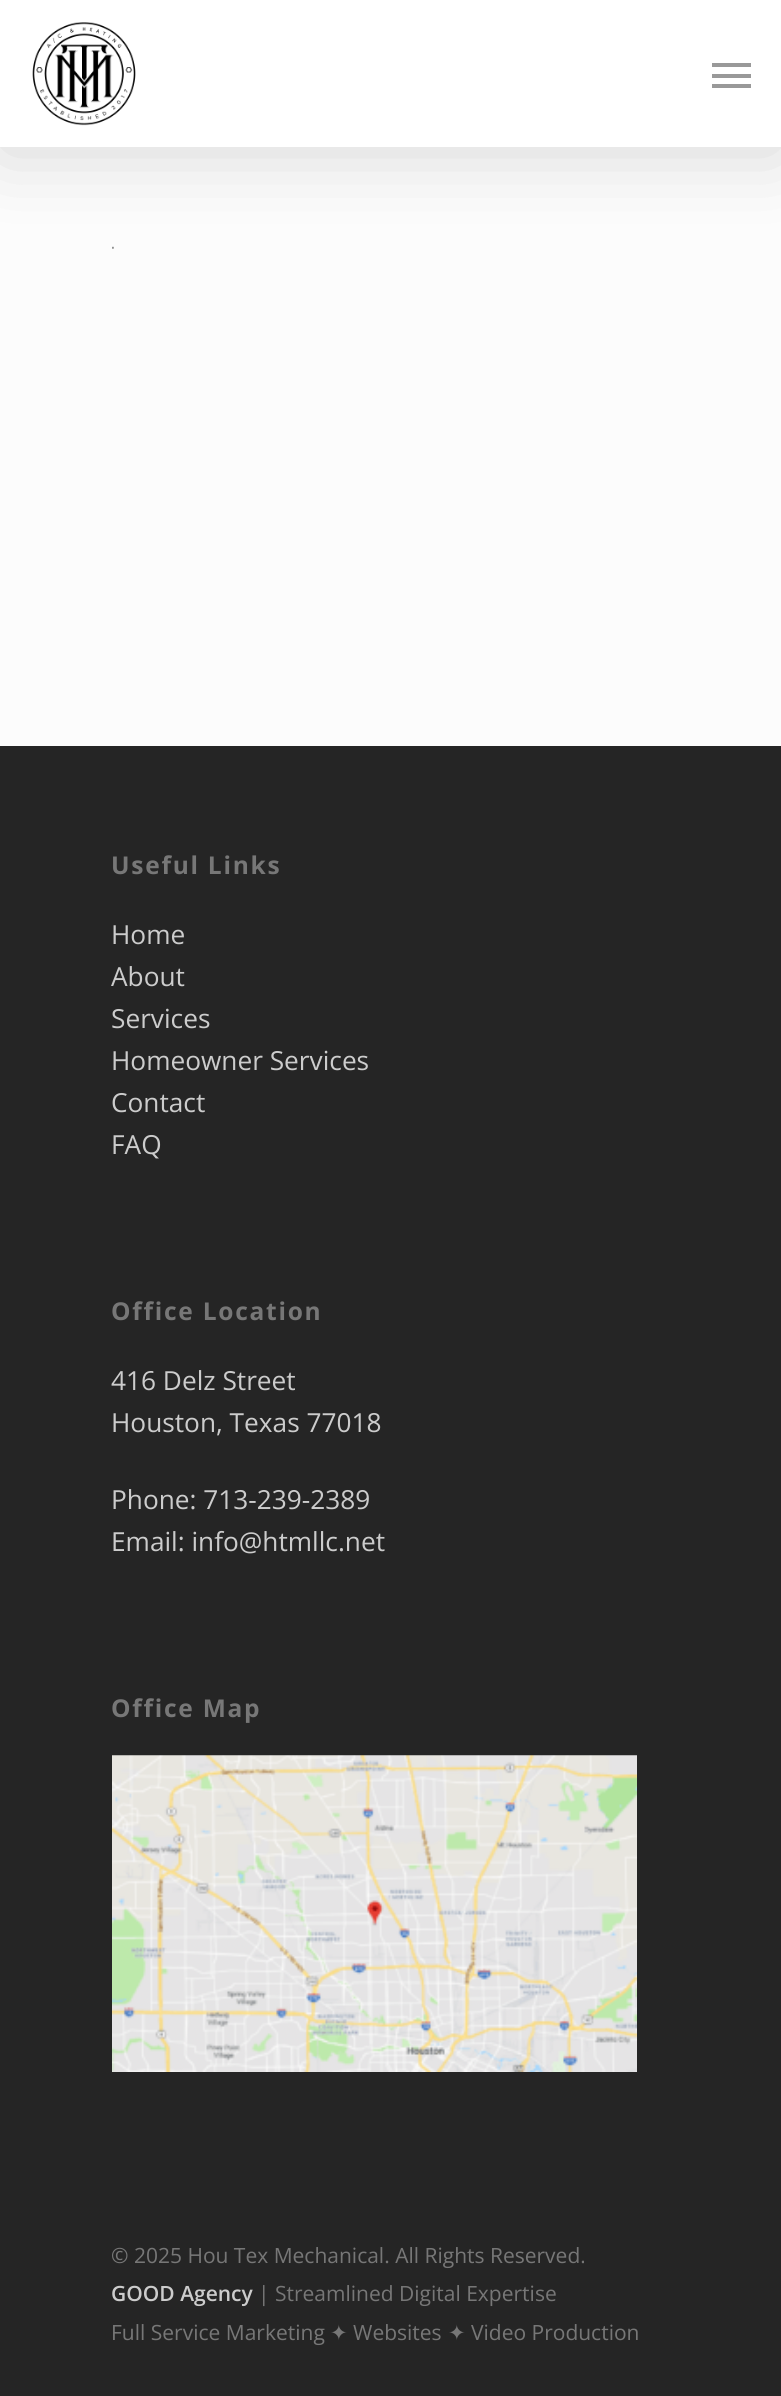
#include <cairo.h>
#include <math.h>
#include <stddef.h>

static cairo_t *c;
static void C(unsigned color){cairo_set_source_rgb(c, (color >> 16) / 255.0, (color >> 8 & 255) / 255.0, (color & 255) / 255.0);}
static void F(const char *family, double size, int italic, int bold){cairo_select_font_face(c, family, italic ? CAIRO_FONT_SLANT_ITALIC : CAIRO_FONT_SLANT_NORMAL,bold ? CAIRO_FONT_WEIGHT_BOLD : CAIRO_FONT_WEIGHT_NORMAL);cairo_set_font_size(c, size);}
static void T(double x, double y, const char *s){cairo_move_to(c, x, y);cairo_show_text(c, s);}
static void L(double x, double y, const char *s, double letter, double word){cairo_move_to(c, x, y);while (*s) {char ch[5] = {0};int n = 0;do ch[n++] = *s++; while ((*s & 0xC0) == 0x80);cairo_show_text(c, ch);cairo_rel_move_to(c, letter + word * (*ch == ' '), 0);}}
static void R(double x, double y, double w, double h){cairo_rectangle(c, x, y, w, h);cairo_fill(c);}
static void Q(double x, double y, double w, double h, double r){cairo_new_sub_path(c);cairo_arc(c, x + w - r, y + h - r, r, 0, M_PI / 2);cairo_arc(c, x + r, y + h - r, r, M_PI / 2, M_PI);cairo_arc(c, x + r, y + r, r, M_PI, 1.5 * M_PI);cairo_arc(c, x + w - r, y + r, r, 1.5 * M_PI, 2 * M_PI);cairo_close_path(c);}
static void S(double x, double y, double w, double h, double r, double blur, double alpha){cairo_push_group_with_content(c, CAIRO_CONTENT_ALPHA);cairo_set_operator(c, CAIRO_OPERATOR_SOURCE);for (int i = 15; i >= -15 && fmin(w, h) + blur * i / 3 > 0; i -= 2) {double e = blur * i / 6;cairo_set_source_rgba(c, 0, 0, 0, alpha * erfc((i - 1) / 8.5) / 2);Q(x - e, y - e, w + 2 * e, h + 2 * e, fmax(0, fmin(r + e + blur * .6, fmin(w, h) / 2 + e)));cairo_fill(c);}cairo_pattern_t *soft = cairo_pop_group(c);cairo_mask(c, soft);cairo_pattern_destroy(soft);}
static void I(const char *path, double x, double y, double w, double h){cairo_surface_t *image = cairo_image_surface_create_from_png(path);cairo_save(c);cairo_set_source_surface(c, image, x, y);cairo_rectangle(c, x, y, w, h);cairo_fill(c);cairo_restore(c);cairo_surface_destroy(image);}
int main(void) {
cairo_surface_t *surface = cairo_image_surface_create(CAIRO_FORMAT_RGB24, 781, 2396);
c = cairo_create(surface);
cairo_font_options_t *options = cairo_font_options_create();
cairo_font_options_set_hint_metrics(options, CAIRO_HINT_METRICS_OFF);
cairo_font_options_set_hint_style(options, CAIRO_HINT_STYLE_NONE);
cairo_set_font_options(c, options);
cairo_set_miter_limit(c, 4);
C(0xfcfcfc);
cairo_paint(c);
I("2.png",112,246,2,3);
C(0x000000);
S(0,5,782,147,0,39.5,.15);
C(0xffffff);
R(0,0,781,147);
I("1.png",32,22,104,104);
C(0x999999);
R(712,63,39,4);
R(712,84,39,4);
R(712,74,39,4);
C(0x252525);
R(0,746,781,1650);
F("Open Sans",24.5,0,1);
C(0x777777);
L(111,874,"Useful Links",1.75,0);
F("Open Sans",26.25,0,0);
C(0xcccccc);
T(111,944,"Home");
T(111,986,"About");
T(111,1028,"Services");
T(111,1070,"Homeowner Services");
T(111,1112,"Contact");
T(111,1154,"FAQ");
F("Open Sans",24.5,0,1);
C(0x777777);
L(111,1320,"Office Location",1.75,0);
F("Open Sans",26.25,0,0);
C(0xcccccc);
T(111,1390,"416 Delz Street");
T(111,1432,"Houston, Texas 77018");
T(111,1509,"Phone: 713-239-2389");
T(111,1551,"Email: info@htmllc.net");
F("Open Sans",24.5,0,1);
C(0x777777);
L(111,1717,"Office Map",1.75,0);
I("3.png",112,1755,525,317);
F("Open Sans",21,0,0);
T(111,2263,"© 2025 Hou Tex Mechanical. All Rights Reserved.");
F("Open Sans SemiBold",21,0,0);
C(0xcccccc);
T(111,2301,"GOOD Agency");
F("Open Sans",21,0,0);
C(0x777777);
T(258,2301,"| Streamlined Digital Expertise");
T(111,2340,"Full Service Marketing");
F("DejaVu Sans",21,0,0);
T(330,2340,"✦");
F("Open Sans",21,0,0);
T(353,2340,"Websites");
F("DejaVu Sans",21,0,0);
T(448,2340,"✦");
F("Open Sans",21,0,0);
T(471,2340,"Video Production");
cairo_surface_write_to_png(surface, "o.png");
cairo_font_options_destroy(options);
cairo_destroy(c);
cairo_surface_destroy(surface);
return 0;
}
